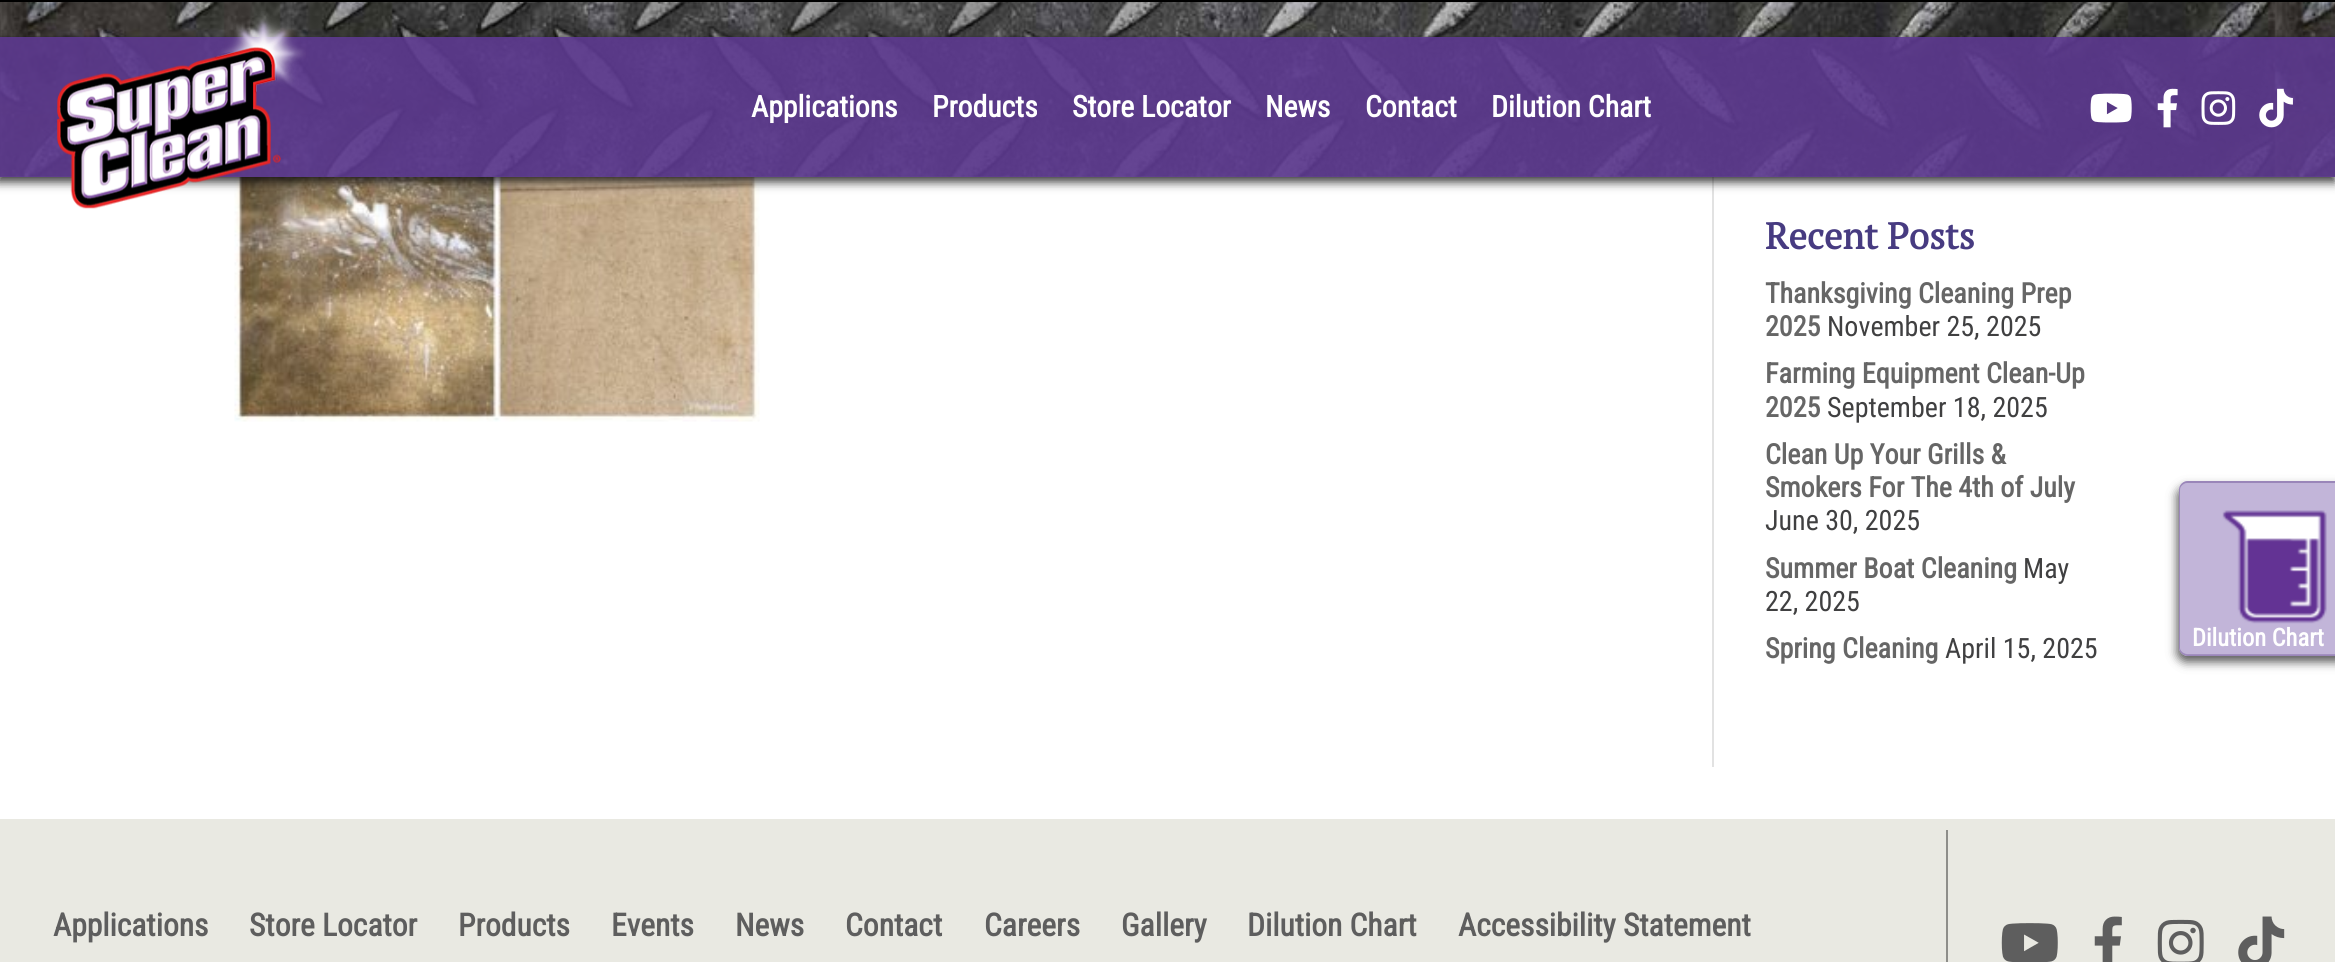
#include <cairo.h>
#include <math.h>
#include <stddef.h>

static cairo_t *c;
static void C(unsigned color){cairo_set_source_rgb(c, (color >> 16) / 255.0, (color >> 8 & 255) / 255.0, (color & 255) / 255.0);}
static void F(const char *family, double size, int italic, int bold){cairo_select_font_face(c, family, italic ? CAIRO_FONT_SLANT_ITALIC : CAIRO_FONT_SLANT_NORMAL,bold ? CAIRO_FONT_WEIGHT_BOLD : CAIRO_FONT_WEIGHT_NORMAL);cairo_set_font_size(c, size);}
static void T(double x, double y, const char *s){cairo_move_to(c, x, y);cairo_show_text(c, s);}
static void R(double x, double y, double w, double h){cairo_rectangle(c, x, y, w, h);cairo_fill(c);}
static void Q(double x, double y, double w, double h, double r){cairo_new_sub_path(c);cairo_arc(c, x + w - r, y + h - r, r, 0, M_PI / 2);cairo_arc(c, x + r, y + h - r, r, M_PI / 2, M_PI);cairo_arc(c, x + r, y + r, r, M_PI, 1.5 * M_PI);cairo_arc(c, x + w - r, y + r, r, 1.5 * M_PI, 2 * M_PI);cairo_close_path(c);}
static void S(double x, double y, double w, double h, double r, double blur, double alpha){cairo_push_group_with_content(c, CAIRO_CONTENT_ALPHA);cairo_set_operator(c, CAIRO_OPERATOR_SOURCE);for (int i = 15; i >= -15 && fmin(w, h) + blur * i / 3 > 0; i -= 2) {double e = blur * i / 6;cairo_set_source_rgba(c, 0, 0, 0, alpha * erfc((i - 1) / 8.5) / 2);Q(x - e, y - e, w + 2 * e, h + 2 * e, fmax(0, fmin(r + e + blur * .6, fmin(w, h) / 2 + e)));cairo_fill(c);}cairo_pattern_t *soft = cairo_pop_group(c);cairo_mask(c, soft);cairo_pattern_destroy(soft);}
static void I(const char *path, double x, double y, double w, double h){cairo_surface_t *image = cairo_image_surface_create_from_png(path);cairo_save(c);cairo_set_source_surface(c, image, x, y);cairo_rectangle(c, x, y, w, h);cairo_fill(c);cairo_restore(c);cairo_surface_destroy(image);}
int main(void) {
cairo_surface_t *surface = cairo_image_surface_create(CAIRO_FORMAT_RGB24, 2335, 962);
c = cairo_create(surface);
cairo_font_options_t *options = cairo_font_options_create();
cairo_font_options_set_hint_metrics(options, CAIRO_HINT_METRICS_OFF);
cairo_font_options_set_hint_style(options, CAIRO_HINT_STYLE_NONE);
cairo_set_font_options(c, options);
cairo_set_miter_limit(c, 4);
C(0xffffff);
cairo_paint(c);
C(0xe2e2e2);
R(1712,176,2,591);
I("8.png",234,176,526,246);
I("1.png",0,2,2335,175);
C(0x000000);
R(0,0,2335,2);
cairo_save(c);
cairo_set_fill_rule(c,CAIRO_FILL_RULE_EVEN_ODD);
cairo_new_path(c);
cairo_move_to(c,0,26);
cairo_line_to(c,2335,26);
cairo_line_to(c,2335,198);
cairo_line_to(c,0,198);
cairo_close_path(c);
cairo_move_to(c,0,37);
cairo_line_to(c,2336,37);
cairo_line_to(c,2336,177);
cairo_line_to(c,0,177);
cairo_close_path(c);
cairo_clip(c);
C(0x0a0a0a);
S(-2,42,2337,140,0,5,.8);
cairo_restore(c);
cairo_set_source_rgba(c,0.361,0.224,0.561,0.9);
R(0,37,2335,140);
I("2.png",57,11,249,198);
F("Roboto Condensed",29.75,0,1);
C(0xffffff);
T(751,117,"Applications");
T(932,117,"Products");
T(1072,117,"Store Locator");
T(1265,117,"News");
T(1365,117,"Contact");
T(1491,117,"Dilution Chart");
I("3.png",2090,93,42,30);
I("4.png",2157,88,21,40);
I("5.png",2201,91,35,34);
I("6.png",2259,88,34,40);
C(0xc0b6d6);
cairo_new_path(c);
cairo_move_to(c,2188,481);
cairo_line_to(c,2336,481);
cairo_line_to(c,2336,656);
cairo_line_to(c,2188,656);
cairo_curve_to(c,2183,656,2179,652,2179,647);
cairo_line_to(c,2179,490);
cairo_curve_to(c,2179,485,2183,481,2188,481);
cairo_close_path(c);
cairo_fill(c);
cairo_save(c);
cairo_set_fill_rule(c,CAIRO_FILL_RULE_EVEN_ODD);
cairo_new_path(c);
cairo_move_to(c,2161,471);
cairo_line_to(c,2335,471);
cairo_line_to(c,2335,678);
cairo_line_to(c,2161,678);
cairo_close_path(c);
cairo_move_to(c,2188,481);
cairo_line_to(c,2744,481);
cairo_line_to(c,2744,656);
cairo_line_to(c,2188,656);
cairo_curve_to(c,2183,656,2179,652,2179,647);
cairo_line_to(c,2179,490);
cairo_curve_to(c,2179,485,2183,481,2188,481);
cairo_close_path(c);
cairo_clip(c);
C(0x323232);
S(2177,487,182,175,9,5,.8);
cairo_restore(c);
C(0x9a86b9);
cairo_set_fill_rule(c,CAIRO_FILL_RULE_EVEN_ODD);
cairo_new_path(c);
cairo_move_to(c,2188,481);
cairo_line_to(c,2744,481);
cairo_line_to(c,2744,656);
cairo_line_to(c,2188,656);
cairo_curve_to(c,2183,656,2179,652,2179,648);
cairo_line_to(c,2179,490);
cairo_curve_to(c,2179,485,2183,481,2188,481);
cairo_close_path(c);
cairo_move_to(c,2188,483);
cairo_line_to(c,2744,483);
cairo_line_to(c,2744,654);
cairo_line_to(c,2188,654);
cairo_curve_to(c,2184,654,2180,651,2180,648);
cairo_line_to(c,2180,490);
cairo_curve_to(c,2180,486,2184,483,2188,483);
cairo_close_path(c);
cairo_fill(c);
I("7.png",2180,483,155,172);
F("Roboto Condensed",24.5,0,1);
C(0xffffff);
T(2192,646,"Dilution Chart");
F("PT Serif",36.75,0,1);
C(0x473b81);
T(1765,249,"Recent Posts");
F("Roboto Condensed",28,0,1);
C(0x666666);
T(1765,303,"Thanksgiving Cleaning Prep");
T(1765,336,"2025");
F("Roboto Condensed",28,0,0);
C(0x404041);
T(1827,336,"November 25, 2025");
F("Roboto Condensed",28,0,1);
C(0x666666);
T(1765,383,"Farming Equipment Clean-Up");
T(1765,417,"2025");
F("Roboto Condensed",28,0,0);
C(0x404041);
T(1827,417,"September 18, 2025");
F("Roboto Condensed",28,0,1);
C(0x666666);
T(1765,464,"Clean Up Your Grills &");
T(1765,497,"Smokers For The 4th of July");
F("Roboto Condensed",28,0,0);
C(0x404041);
T(1765,530,"June 30, 2025");
F("Roboto Condensed",28,0,1);
C(0x666666);
T(1765,578,"Summer Boat Cleaning");
F("Roboto Condensed",28,0,0);
C(0x404041);
T(2023,578,"May");
T(1765,611,"22, 2025");
F("Roboto Condensed",28,0,1);
C(0x666666);
T(1765,658,"Spring Cleaning");
F("Roboto Condensed",28,0,0);
C(0x404041);
T(1945,658,"April 15, 2025");
C(0xe9e9e2);
R(0,819,2335,143);
F("Roboto Condensed",31.5,0,1);
C(0x5e5e5e);
T(53,936,"Applications");
T(249,936,"Store Locator");
T(458,936,"Products");
T(611,936,"Events");
T(735,936,"News");
T(845,936,"Contact");
T(984,936,"Careers");
T(1121,936,"Gallery");
T(1247,936,"Dilution Chart");
T(1458,936,"Accessibility Statement");
C(0x8e8e8a);
R(1946,830,2,132);
I("9.png",2001,923,57,39);
I("10.png",2094,916,28,46);
I("11.png",2157,919,47,43);
I("12.png",2238,916,47,46);
cairo_surface_write_to_png(surface, "o.png");
cairo_font_options_destroy(options);
cairo_destroy(c);
cairo_surface_destroy(surface);
return 0;
}
